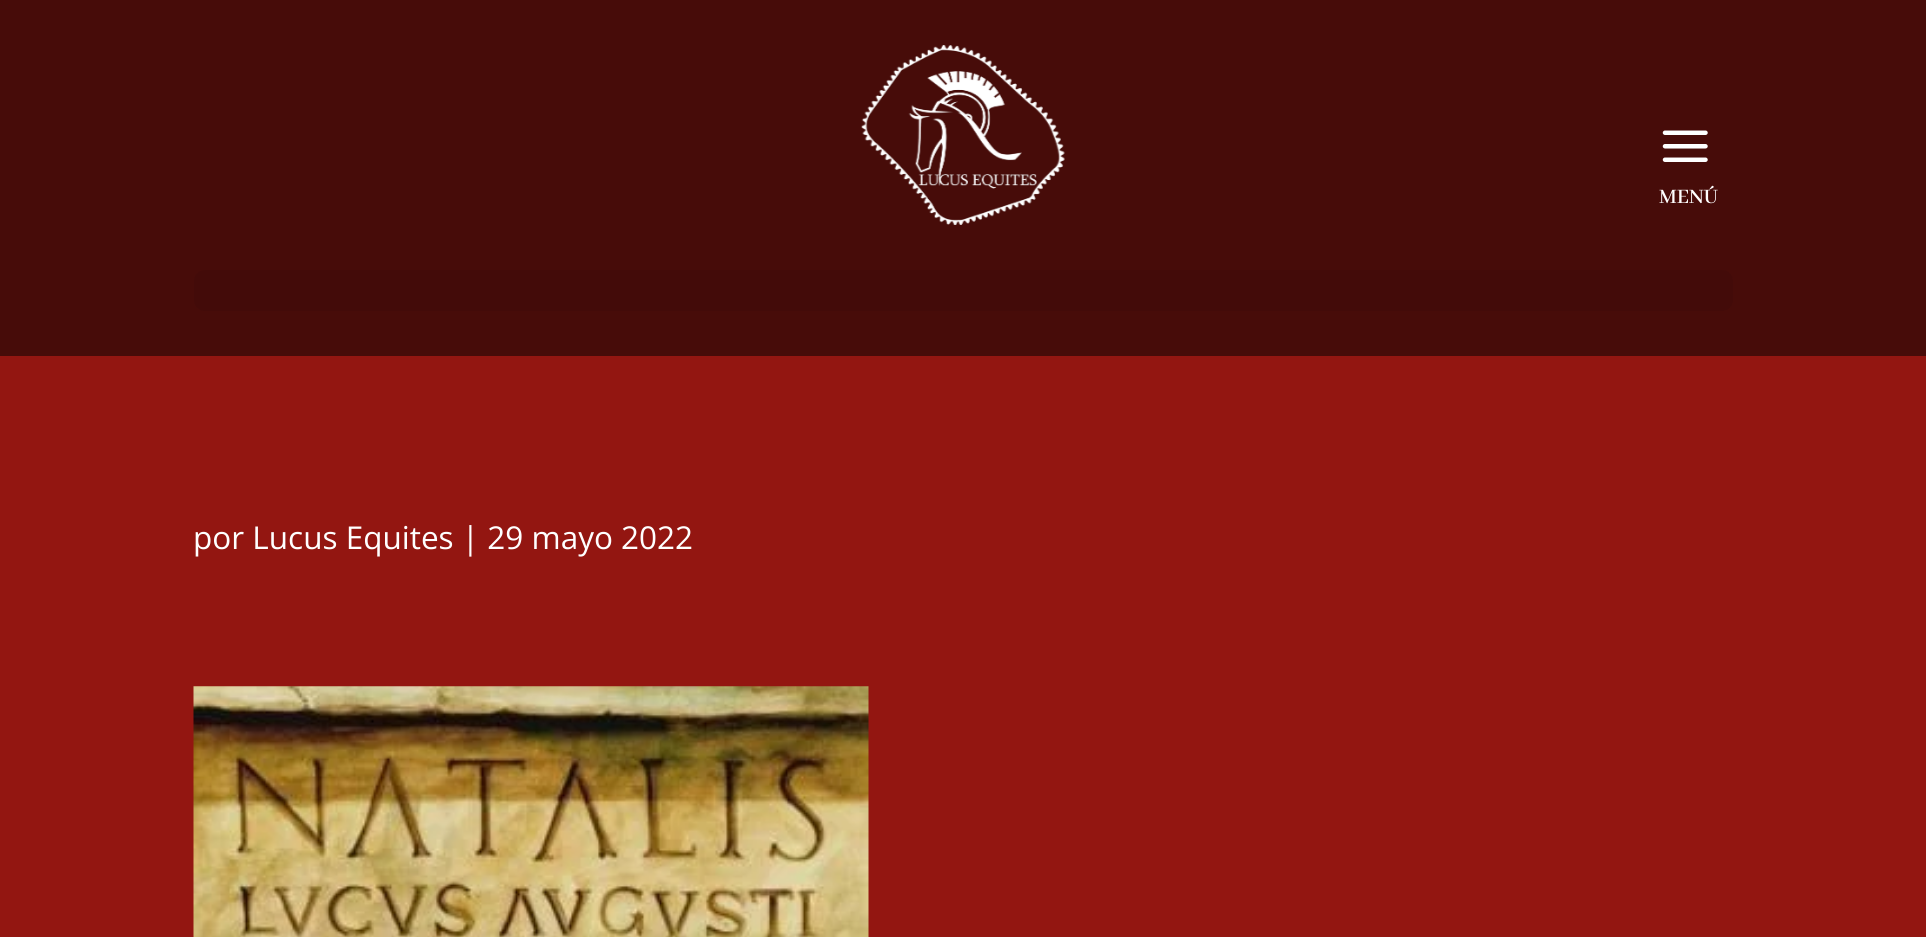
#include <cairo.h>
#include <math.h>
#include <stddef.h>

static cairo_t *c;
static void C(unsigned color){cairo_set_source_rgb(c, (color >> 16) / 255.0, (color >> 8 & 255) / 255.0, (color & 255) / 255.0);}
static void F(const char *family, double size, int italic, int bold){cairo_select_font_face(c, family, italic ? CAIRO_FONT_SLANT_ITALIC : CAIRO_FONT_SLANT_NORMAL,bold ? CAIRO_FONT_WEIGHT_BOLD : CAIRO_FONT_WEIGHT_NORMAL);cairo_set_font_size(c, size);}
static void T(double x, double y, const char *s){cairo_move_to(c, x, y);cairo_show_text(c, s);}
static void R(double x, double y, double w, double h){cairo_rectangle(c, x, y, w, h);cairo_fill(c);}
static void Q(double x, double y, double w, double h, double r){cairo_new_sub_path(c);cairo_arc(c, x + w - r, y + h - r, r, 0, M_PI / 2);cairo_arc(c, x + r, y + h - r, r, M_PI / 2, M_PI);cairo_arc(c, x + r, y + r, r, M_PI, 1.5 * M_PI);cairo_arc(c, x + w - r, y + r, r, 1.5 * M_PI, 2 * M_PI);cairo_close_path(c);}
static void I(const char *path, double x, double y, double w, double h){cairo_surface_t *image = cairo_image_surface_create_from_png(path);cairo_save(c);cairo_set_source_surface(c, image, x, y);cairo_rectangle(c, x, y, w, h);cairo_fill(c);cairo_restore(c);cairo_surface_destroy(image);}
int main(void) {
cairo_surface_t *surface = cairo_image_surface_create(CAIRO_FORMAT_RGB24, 1926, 937);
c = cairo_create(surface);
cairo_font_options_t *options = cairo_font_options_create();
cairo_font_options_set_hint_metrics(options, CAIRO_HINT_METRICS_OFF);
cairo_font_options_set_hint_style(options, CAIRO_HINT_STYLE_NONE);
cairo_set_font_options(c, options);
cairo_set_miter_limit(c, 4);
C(0x931611);
cairo_paint(c);
C(0x470c09);
R(0,0,1926,356);
I("1.png",861,45,204,180);
C(0x430b09);
Q(194,270,1539,41,11);
cairo_fill(c);
I("2.png",1662,130,46,32);
F("Abhaya Libre SemiBold SemiBold",22.5,0,0);
C(0xffffff);
T(1659,203,"MENÚ");
F("Open Sans",31.5,0,0);
T(193,549,"por Lucus Equites | 29 mayo 2022");
I("3.png",193,686,676,251);
cairo_surface_write_to_png(surface, "o.png");
cairo_font_options_destroy(options);
cairo_destroy(c);
cairo_surface_destroy(surface);
return 0;
}
